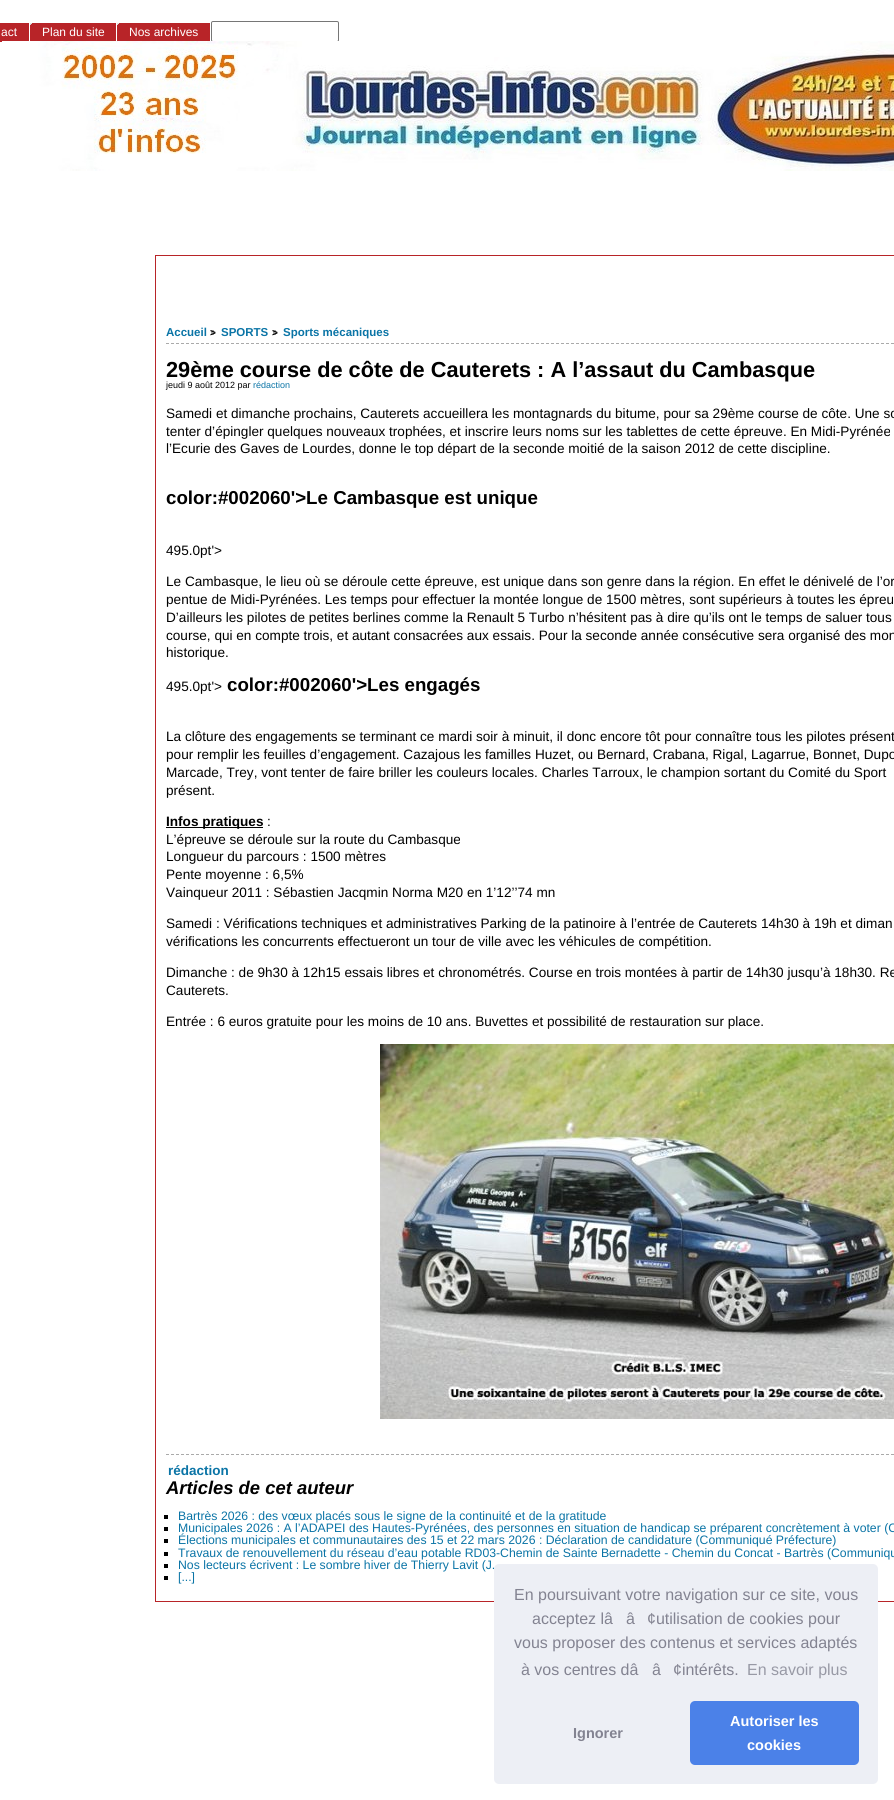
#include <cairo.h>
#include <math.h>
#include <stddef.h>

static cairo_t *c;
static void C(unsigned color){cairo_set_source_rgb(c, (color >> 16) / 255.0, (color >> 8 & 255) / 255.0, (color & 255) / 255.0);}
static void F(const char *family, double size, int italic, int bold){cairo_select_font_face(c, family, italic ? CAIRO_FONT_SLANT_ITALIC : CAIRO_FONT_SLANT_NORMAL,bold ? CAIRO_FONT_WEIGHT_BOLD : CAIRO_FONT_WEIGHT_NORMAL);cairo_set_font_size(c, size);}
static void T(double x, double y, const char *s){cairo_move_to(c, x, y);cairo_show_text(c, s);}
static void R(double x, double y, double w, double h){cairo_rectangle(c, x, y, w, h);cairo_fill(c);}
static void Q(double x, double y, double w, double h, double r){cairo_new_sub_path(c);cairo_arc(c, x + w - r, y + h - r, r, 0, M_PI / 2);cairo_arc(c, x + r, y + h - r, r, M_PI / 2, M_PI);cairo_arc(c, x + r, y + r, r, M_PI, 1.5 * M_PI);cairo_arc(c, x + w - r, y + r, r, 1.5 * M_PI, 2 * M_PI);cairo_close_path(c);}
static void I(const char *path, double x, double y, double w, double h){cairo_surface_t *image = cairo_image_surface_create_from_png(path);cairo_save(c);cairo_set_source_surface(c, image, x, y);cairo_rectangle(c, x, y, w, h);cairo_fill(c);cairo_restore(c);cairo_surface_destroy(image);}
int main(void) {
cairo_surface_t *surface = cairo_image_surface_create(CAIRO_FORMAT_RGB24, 894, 1800);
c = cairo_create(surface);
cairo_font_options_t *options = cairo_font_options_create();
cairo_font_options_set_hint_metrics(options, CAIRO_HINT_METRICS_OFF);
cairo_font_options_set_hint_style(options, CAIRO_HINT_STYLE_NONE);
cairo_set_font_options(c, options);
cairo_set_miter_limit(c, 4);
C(0xffffff);
cairo_paint(c);
C(0xb82428);
R(0,23,29,19);
F("Liberation Sans",12,0,0);
C(0xffffff);
T(1,36,"act");
C(0xb82428);
R(30,23,86,18);
I("1.png",30,23,2,2);
C(0xffffff);
T(42,36,"Plan du site");
C(0xb82428);
R(117,23,93,18);
I("1.png",117,23,2,2);
C(0xffffff);
T(129,36,"Nos archives");
Q(211.5,21.5,127,20,1.5);
C(0x767676);
cairo_set_line_width(c,1);
cairo_stroke(c);
I("2.png",2,41,892,130);
cairo_rectangle(c,155.5,255.5,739,1346);
C(0xb82428);
cairo_stroke(c);
F("Liberation Sans",11.5,0,1);
C(0x0a74a6);
T(166,336,"Accueil");
C(0xa7a7a7);
R(211,330,3,5);
F("Liberation Sans",10,0,1);
C(0x000000);
T(210,336,">");
F("Liberation Sans",11.5,0,1);
C(0x0a74a6);
T(221,336,"SPORTS");
C(0xa7a7a7);
R(273,330,3,5);
F("Liberation Sans",10,0,1);
C(0x000000);
T(272,336,">");
F("Liberation Sans",11.5,0,1);
C(0x0a74a6);
T(283,336,"Sports mécaniques");
cairo_new_path(c);
cairo_move_to(c,166,343.5);
cairo_line_to(c,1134,343.5);
C(0xaaaaaa);
cairo_set_dash(c,(double[]){3,2},2,0);
cairo_stroke(c);
F("Liberation Sans",21.75,0,1);
C(0x000000);
T(166,377,"29ème course de côte de Cauterets : A l’assaut du Cambasque");
F("Liberation Sans",9,0,0);
T(166,388,"jeudi 9 août 2012 par");
C(0x0a74a6);
T(253,388,"rédaction");
F("Liberation Sans",13.6,0,0);
C(0x000000);
T(166,418,"Samedi et dimanche prochains, Cauterets accueillera les montagnards du bitume, pour sa 29ème course de côte. Une so");
T(166,436,"tenter d’épingler quelques nouveaux trophées, et inscrire leurs noms sur les tablettes de cette épreuve. En Midi-Pyrénée");
T(166,453,"l’Ecurie des Gaves de Lourdes, donne le top départ de la seconde moitié de la saison 2012 de cette discipline.");
F("Liberation Sans",18.7,0,1);
T(166,504,"color:#002060'>Le Cambasque est unique");
F("Liberation Sans",13.6,0,0);
T(166,555,"495.0pt'>");
T(166,586,"Le Cambasque, le lieu où se déroule cette épreuve, est unique dans son genre dans la région. En effet le dénivelé de l’or");
T(166,604,"pentue de Midi-Pyrénées. Les temps pour effectuer la montée longue de 1500 mètres, sont supérieurs à toutes les épreu");
T(166,622,"D’ailleurs les pilotes de petites berlines comme la Renault 5 Turbo n’hésitent pas à dire qu’ils ont le temps de saluer tous");
T(166,640,"course, qui en compte trois, et autant consacrées aux essais. Pour la seconde année consécutive sera organisé des mon");
T(166,657,"historique.");
T(166,691,"495.0pt'>");
F("Liberation Sans",18.7,0,1);
T(227,691,"color:#002060'>Les engagés");
F("Liberation Sans",13.6,0,0);
T(166,741,"La clôture des engagements se terminant ce mardi soir à minuit, il donc encore tôt pour connaître tous les pilotes présent");
T(166,759,"pour remplir les feuilles d’engagement. Cazajous les familles Huzet, ou Bernard, Crabana, Rigal, Lagarrue, Bonnet, Dupo");
T(166,777,"Marcade, Trey, vont tenter de faire briller les couleurs locales. Charles Tarroux, le champion sortant du Comité du Sport");
T(166,795,"présent.");
R(166,827,97,1);
F("Liberation Sans",13.6,0,1);
T(166,826,"Infos pratiques");
F("Liberation Sans",13.6,0,0);
T(267,826,":");
T(166,844,"L’épreuve se déroule sur la route du Cambasque");
T(166,861,"Longueur du parcours : 1500 mètres");
T(166,879,"Pente moyenne : 6,5%");
T(166,897,"Vainqueur 2011 : Sébastien Jacqmin Norma M20 en 1’12’’74 mn");
T(166,928,"Samedi : Vérifications techniques et administratives Parking de la patinoire à l’entrée de Cauterets 14h30 à 19h et diman");
T(166,946,"vérifications les concurrents effectueront un tour de ville avec les véhicules de compétition.");
T(166,977,"Dimanche : de 9h30 à 12h15 essais libres et chronométrés. Course en trois montées à partir de 14h30 jusqu’à 18h30. Re");
T(166,995,"Cauterets.");
T(166,1026,"Entrée : 6 euros gratuite pour les moins de 10 ans. Buvettes et possibilité de restauration sur place.");
I("3.png",380,1044,514,375);
cairo_new_path(c);
cairo_move_to(c,166,1454.5);
cairo_line_to(c,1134,1454.5);
C(0xaaaaaa);
cairo_stroke(c);
F("Liberation Sans",13.5,0,1);
C(0x0a74a6);
T(168,1475,"rédaction");
F("Liberation Sans",18.4,1,1);
C(0x000000);
T(166,1494,"Articles de cet auteur");
R(164,1515,4,4);
F("Liberation Sans",12.25,0,0);
C(0x0a74a6);
T(178,1520,"Bartrès 2026 : des vœux placés sous le signe de la continuité et de la gratitude");
C(0x000000);
R(164,1527,4,4);
C(0x0a74a6);
T(178,1532,"Municipales 2026 : A l’ADAPEI des Hautes-Pyrénées, des personnes en situation de handicap se préparent concrètement à voter (C");
C(0x000000);
R(164,1539,4,4);
C(0x0a74a6);
T(178,1544,"Élections municipales et communautaires des 15 et 22 mars 2026 : Déclaration de candidature (Communiqué Préfecture)");
C(0x000000);
R(164,1552,4,4);
C(0x0a74a6);
T(178,1557,"Travaux de renouvellement du réseau d’eau potable RD03-Chemin de Sainte Bernadette - Chemin du Concat - Bartrès (Communiqu");
C(0x000000);
R(164,1564,4,4);
C(0x0a74a6);
T(178,1569,"Nos lecteurs écrivent : Le sombre hiver de Thierry Lavit (J.");
C(0x000000);
R(164,1576,4,4);
C(0x0a74a6);
T(178,1581,"[...]");
C(0xedeff5);
Q(494,1564,384,220,5);
cairo_fill(c);
F("Liberation Sans",16,0,0);
C(0x838391);
T(514,1600,"En poursuivant votre navigation sur ce site, vous");
T(532,1624,"acceptez lâ");
T(626,1624,"â");
T(647,1624,"¢utilisation de cookies pour");
T(514,1648,"vous proposer des contenus et services adaptés");
T(521,1675,"à vos centres dâ");
T(652,1675,"â");
T(673,1675,"¢intérêts.");
C(0x9899a5);
T(747,1675,"En savoir plus");
F("Liberation Sans",14.5,0,1);
C(0x838391);
T(573,1738,"Ignorer");
C(0x4b81e8);
Q(690,1701,169,64,5);
cairo_fill(c);
C(0xffffff);
T(730,1726,"Autoriser les");
T(747,1750,"cookies");
cairo_surface_write_to_png(surface, "o.png");
cairo_font_options_destroy(options);
cairo_destroy(c);
cairo_surface_destroy(surface);
return 0;
}
